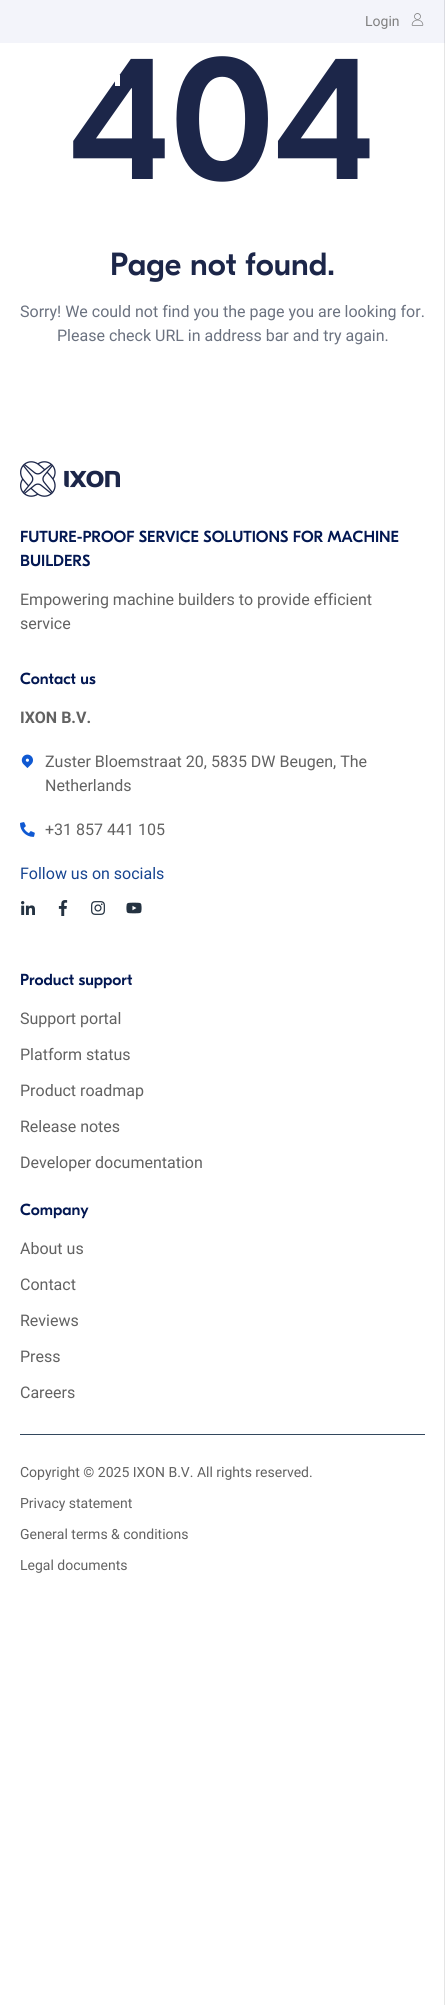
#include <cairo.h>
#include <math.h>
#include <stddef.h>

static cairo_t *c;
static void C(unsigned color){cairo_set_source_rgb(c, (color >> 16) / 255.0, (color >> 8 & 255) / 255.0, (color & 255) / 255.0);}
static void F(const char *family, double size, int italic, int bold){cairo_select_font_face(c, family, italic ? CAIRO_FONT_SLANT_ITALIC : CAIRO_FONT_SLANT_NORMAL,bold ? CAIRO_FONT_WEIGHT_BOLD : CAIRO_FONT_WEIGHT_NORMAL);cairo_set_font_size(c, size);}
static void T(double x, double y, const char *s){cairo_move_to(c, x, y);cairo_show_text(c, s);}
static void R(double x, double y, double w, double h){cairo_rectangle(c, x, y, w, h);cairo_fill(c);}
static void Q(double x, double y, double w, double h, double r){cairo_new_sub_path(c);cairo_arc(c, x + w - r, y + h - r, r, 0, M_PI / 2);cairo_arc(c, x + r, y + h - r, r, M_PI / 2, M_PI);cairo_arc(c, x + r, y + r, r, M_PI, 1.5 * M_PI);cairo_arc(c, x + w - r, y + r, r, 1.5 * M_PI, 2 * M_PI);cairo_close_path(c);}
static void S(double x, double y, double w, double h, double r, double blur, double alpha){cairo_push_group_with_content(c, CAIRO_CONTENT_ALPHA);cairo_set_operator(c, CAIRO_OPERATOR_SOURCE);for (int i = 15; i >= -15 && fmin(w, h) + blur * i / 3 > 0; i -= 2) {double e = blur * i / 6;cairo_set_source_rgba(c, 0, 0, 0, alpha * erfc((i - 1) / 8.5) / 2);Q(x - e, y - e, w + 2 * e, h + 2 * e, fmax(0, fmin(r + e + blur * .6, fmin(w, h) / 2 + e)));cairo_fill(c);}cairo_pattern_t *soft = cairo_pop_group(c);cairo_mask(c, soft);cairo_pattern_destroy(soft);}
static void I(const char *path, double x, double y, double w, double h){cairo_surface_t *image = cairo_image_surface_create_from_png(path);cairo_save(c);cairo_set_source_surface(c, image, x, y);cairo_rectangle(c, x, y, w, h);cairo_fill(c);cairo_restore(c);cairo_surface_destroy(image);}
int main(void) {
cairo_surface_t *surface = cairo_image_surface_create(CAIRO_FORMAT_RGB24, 445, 2005);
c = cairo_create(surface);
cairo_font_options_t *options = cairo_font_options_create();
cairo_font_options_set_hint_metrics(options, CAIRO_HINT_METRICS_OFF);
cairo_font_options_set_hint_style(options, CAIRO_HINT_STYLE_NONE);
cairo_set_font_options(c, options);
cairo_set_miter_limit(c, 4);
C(0xffffff);
cairo_paint(c);
F("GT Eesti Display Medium",178,0,0);
C(0x1c2649);
T(70,179,"404");
C(0xffffff);
R(115,75,5,11);
C(0xf3f4fa);
R(0,0,445,43);
C(0x272727);
S(445,0,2,2005,0,.5,.5);
F("Roboto",14,0,0);
C(0x808080);
T(365,26,"Login");
I("1.png",411,13,13,13);
F("GT Eesti Display Medium",32,0,0);
C(0x1c2649);
T(110,275,"Page not found.");
F("Roboto",16,0,0);
C(0x6b7280);
T(20,317,"Sorry! We could not find you the page you are looking for.");
T(57,341,"Please check URL in address bar and try again.");
I("2.png",20,461,100,36);
F("GT Eesti Display Medium",16,0,0);
C(0x021752);
T(20,542,"FUTURE-PROOF SERVICE SOLUTIONS FOR MACHINE");
T(20,566,"BUILDERS");
F("Roboto",16,0,0);
C(0x626262);
T(20,605,"Empowering machine builders to provide efficient");
T(20,629,"service");
F("GT Eesti Display Medium",16,0,0);
C(0x021752);
T(20,684,"Contact us");
F("Roboto",16,0,1);
C(0x626262);
T(20,723,"IXON B.V.");
I("3.png",21,754,12,14);
F("Roboto",16,0,0);
T(45,767,"Zuster Bloemstraat 20, 5835 DW Beugen, The");
T(45,791,"Netherlands");
I("4.png",20,822,15,15);
T(45,835,"+31 857 441 105");
C(0x174591);
T(20,879,"Follow us on socials");
I("5.png",21,901,14,14);
I("6.png",58,900,10,16);
I("7.png",91,901,14,14);
I("8.png",126,902,16,12);
F("GT Eesti Display Medium",16,0,0);
C(0x021752);
T(20,985,"Product support");
F("Roboto",16,0,0);
C(0x626262);
T(20,1024,"Support portal");
T(20,1060,"Platform status");
T(20,1096,"Product roadmap");
T(20,1132,"Release notes");
T(20,1168,"Developer documentation");
F("GT Eesti Display Medium",16,0,0);
C(0x021752);
T(20,1215,"Company");
F("Roboto",16,0,0);
C(0x626262);
T(20,1254,"About us");
T(20,1290,"Contact");
T(20,1326,"Reviews");
T(20,1362,"Press");
T(20,1398,"Careers");
C(0x33475d);
R(20,1434,405,1);
F("Roboto",14,0,0);
C(0x626262);
T(20,1477,"Copyright © 2025 IXON B.V. All rights reserved.");
T(20,1508,"Privacy statement");
T(20,1539,"General terms & conditions");
T(20,1570,"Legal documents");
cairo_surface_write_to_png(surface, "o.png");
cairo_font_options_destroy(options);
cairo_destroy(c);
cairo_surface_destroy(surface);
return 0;
}
